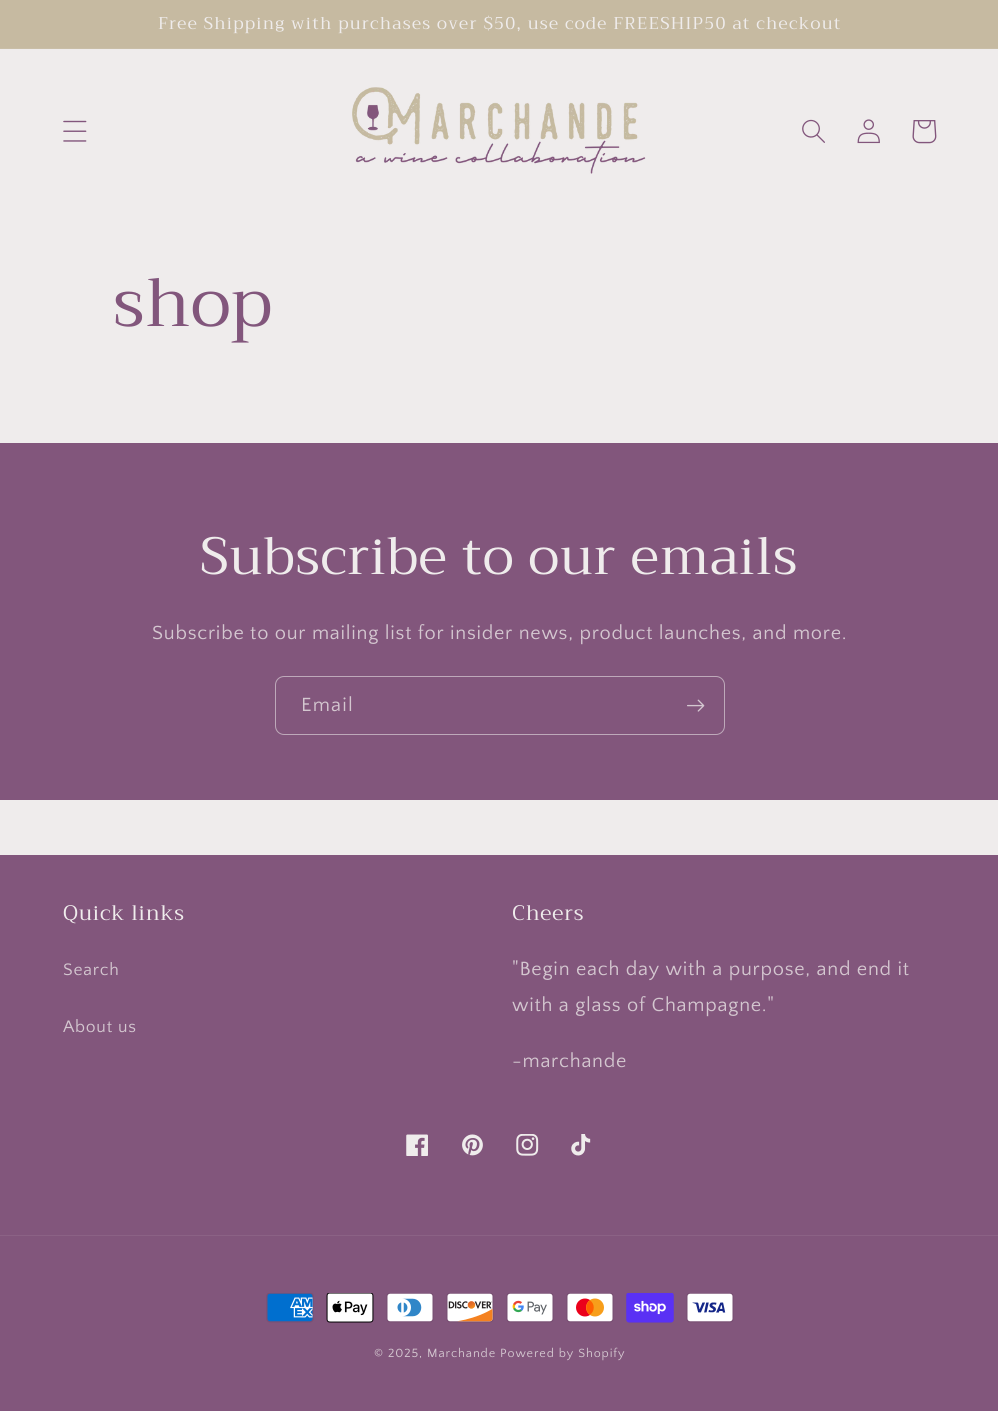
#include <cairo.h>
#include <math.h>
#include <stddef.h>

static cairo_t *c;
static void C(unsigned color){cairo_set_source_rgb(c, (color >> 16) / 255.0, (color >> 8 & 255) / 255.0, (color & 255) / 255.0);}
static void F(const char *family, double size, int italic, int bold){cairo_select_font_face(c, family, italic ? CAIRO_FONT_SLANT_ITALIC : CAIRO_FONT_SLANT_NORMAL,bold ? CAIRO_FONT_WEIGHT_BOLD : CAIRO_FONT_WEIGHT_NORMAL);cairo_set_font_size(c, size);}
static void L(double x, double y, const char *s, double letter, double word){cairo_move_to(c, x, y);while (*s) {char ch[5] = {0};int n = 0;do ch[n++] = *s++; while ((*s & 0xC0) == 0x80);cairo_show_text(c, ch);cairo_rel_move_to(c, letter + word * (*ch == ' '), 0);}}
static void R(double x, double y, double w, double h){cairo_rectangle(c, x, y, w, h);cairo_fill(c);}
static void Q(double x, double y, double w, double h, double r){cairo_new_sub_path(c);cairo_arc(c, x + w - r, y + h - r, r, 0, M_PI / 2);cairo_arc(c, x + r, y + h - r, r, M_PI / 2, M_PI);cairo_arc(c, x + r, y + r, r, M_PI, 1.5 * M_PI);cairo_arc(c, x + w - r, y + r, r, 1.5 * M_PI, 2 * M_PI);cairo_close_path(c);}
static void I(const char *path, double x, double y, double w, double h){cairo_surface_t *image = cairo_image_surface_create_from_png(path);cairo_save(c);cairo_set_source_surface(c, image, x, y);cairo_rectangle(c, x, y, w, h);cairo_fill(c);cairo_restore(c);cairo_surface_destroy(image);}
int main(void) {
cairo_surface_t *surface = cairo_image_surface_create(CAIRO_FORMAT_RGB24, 998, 1411);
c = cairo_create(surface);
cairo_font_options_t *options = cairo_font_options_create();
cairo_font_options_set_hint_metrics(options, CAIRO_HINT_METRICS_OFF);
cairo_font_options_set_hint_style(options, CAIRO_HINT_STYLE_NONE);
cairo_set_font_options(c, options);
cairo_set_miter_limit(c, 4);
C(0xefecec);
cairo_paint(c);
C(0xc6baa1);
R(0,0,998,48);
C(0xc9bea7);
R(0,48,998,1);
F("Trirong",17.05,0,0);
C(0xefecec);
L(158,29,"Free Shipping with purchases over $50, use code FREESHIP50 at checkout",1.25,0);
I("1.png",63,120,24,22);
I("2.png",352,87,294,87);
I("3.png",802,119,23,24);
I("4.png",857,119,23,25);
I("5.png",912,120,25,24);
F("Trirong",68,0,0);
C(0x82567c);
L(113,326,"shop",.75,0);
R(0,443,998,357);
F("Trirong",52.5,0,0);
C(0xefecec);
L(200,574,"Subscribe to our emails",.75,0);
F("Quattrocento Sans",20,0,0);
C(0xd4c7d0);
L(152,639,"Subscribe to our mailing list for insider news, product launches, and more.",.75,0);
Q(275.5,676.5,449,58,8.5);
C(0xbea9ba);
cairo_set_line_width(c,1);
cairo_stroke(c);
C(0xd4c7d0);
L(301,711,"Email",1.25,0);
I("6.png",687,699,18,13);
C(0x82567c);
R(0,855,998,556);
F("Trirong",21,0,0);
C(0xefecec);
L(63,920,"Quick links",.75,0);
F("Quattrocento Sans",17.5,0,0);
C(0xd4c7d0);
L(63,975,"Search",.75,0);
L(63,1032,"About us",.75,0);
F("Trirong",21,0,0);
C(0xefecec);
L(512,920,"Cheers",.75,0);
F("Quattrocento Sans",20,0,0);
C(0xd4c7d0);
L(512,975,"\"Begin each day with a purpose, and end it",.75,0);
L(512,1011,"with a glass of Champagne.\"",.75,0);
L(512,1067,"-marchande",.75,0);
I("7.png",406,1134,22,22);
I("8.png",462,1134,21,22);
I("9.png",516,1134,23,22);
I("10.png",571,1134,20,22);
C(0x8b6285);
R(0,1235,998,1);
I("11.png",266,1293,48,30);
I("12.png",326,1293,48,30);
I("13.png",386,1293,48,30);
I("14.png",446,1293,48,30);
I("15.png",506,1293,48,30);
I("16.png",566,1293,48,30);
I("17.png",626,1293,48,30);
I("18.png",686,1293,48,30);
F("Quattrocento Sans",12.5,0,0);
C(0xd4c7d0);
L(374,1357,"© 2025, Marchande",.9,0);
L(500,1357,"Powered by Shopify",.9,0);
cairo_surface_write_to_png(surface, "o.png");
cairo_font_options_destroy(options);
cairo_destroy(c);
cairo_surface_destroy(surface);
return 0;
}
